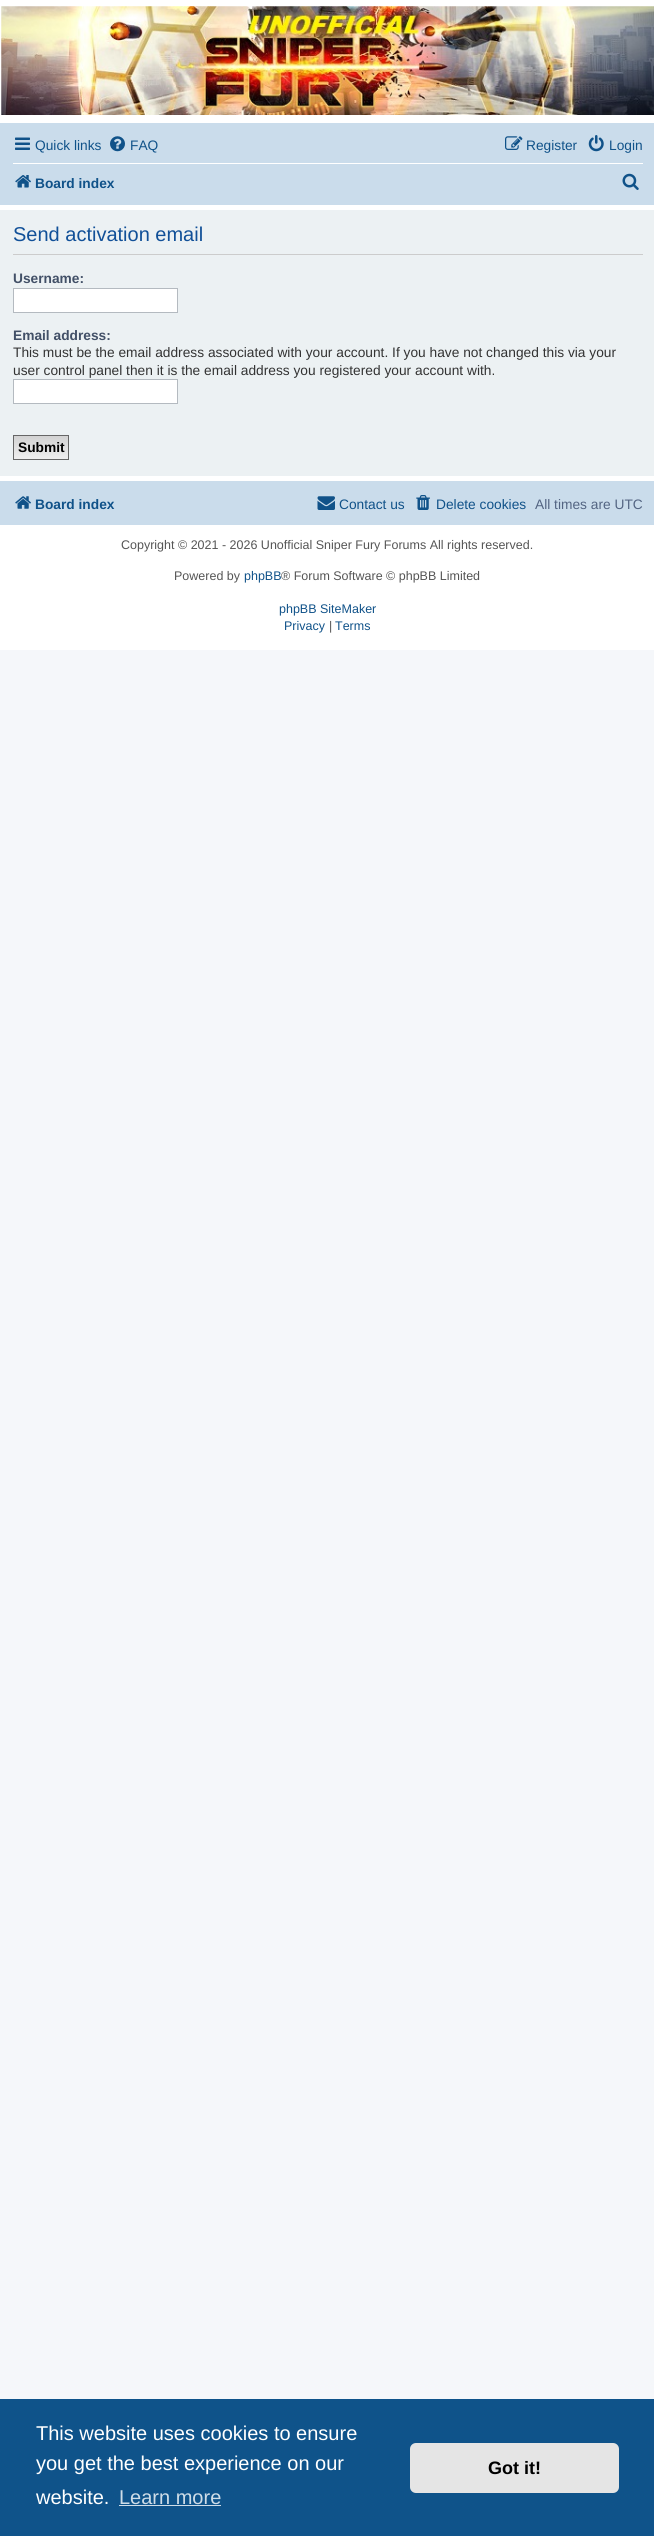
#include <cairo.h>
#include <math.h>
#include <stddef.h>

static cairo_t *c;
static void C(unsigned color){cairo_set_source_rgb(c, (color >> 16) / 255.0, (color >> 8 & 255) / 255.0, (color & 255) / 255.0);}
static void F(const char *family, double size, int italic, int bold){cairo_select_font_face(c, family, italic ? CAIRO_FONT_SLANT_ITALIC : CAIRO_FONT_SLANT_NORMAL,bold ? CAIRO_FONT_WEIGHT_BOLD : CAIRO_FONT_WEIGHT_NORMAL);cairo_set_font_size(c, size);}
static void T(double x, double y, const char *s){cairo_move_to(c, x, y);cairo_show_text(c, s);}
static void R(double x, double y, double w, double h){cairo_rectangle(c, x, y, w, h);cairo_fill(c);}
static void Q(double x, double y, double w, double h, double r){cairo_new_sub_path(c);cairo_arc(c, x + w - r, y + h - r, r, 0, M_PI / 2);cairo_arc(c, x + r, y + h - r, r, M_PI / 2, M_PI);cairo_arc(c, x + r, y + r, r, M_PI, 1.5 * M_PI);cairo_arc(c, x + w - r, y + r, r, 1.5 * M_PI, 2 * M_PI);cairo_close_path(c);}
static void I(const char *path, double x, double y, double w, double h){cairo_surface_t *image = cairo_image_surface_create_from_png(path);cairo_save(c);cairo_set_source_surface(c, image, x, y);cairo_rectangle(c, x, y, w, h);cairo_fill(c);cairo_restore(c);cairo_surface_destroy(image);}
int main(void) {
cairo_surface_t *surface = cairo_image_surface_create(CAIRO_FORMAT_RGB24, 654, 2536);
c = cairo_create(surface);
cairo_font_options_t *options = cairo_font_options_create();
cairo_font_options_set_hint_metrics(options, CAIRO_HINT_METRICS_OFF);
cairo_font_options_set_hint_style(options, CAIRO_HINT_STYLE_NONE);
cairo_set_font_options(c, options);
cairo_set_miter_limit(c, 4);
cairo_pattern_t *gradient;
C(0xf5f7fa);
cairo_paint(c);
C(0xffffff);
R(0,0,654,650);
I("1.png",1,6,653,109);
C(0xcadceb);
R(0,123,654,82);
I("2.png",15,137,15,13);
F("Liberation Sans",13.75,0,0);
C(0x105289);
T(35,150,"Quick links");
I("3.png",110,136,15,16);
T(130,150,"FAQ");
I("4.png",505,136,18,14);
T(526,150,"Register");
I("5.png",588,135,16,17);
T(609,150,"Login");
C(0xffffff);
R(13,163,630,1);
I("6.png",15,175,16,13);
F("Liberation Sans",13.75,0,1);
C(0x105289);
T(35,188,"Board index");
I("7.png",622,173,17,17);
C(0xecf1f3);
R(0,210,654,266);
C(0xcccccc);
R(13,254,630,1);
F("Liberation Sans",20,0,0);
C(0x115098);
T(13,241,"Send activation email");
F("Liberation Sans",13.75,0,1);
C(0x425067);
T(13,283,"Username:");
C(0xffffff);
cairo_rectangle(c,13.5,288.5,164,24);
cairo_fill_preserve(c);
C(0xb4bac0);
cairo_set_line_width(c,1);
cairo_stroke(c);
C(0x425067);
T(13,340,"Email address:");
F("Liberation Sans",13.75,0,0);
C(0x333333);
T(13,357,"This must be the email address associated with your account. If you have not changed this via your");
T(13,375,"user control panel then it is the email address you registered your account with.");
C(0xffffff);
cairo_rectangle(c,13.5,379.5,164,24);
cairo_fill_preserve(c);
C(0xb4bac0);
cairo_stroke(c);
gradient = cairo_pattern_create_linear(41,436,41,459);
cairo_pattern_add_color_stop_rgba(gradient,0,0.824,0.824,0.824,1);
cairo_pattern_add_color_stop_rgba(gradient,1,0.937,0.937,0.937,1);
cairo_set_source(c,gradient);
cairo_pattern_destroy(gradient);
R(14,436,54,23);
cairo_rectangle(c,13.5,435.5,55,24);
C(0x666666);
cairo_stroke(c);
F("Liberation Sans",13.75,0,1);
C(0x000000);
T(18,452,"Submit");
C(0xcadceb);
R(0,481,654,44);
I("8.png",15,496,16,13);
C(0x105289);
T(35,509,"Board index");
I("9.png",317,496,18,14);
F("Liberation Sans",13.75,0,0);
T(339,509,"Contact us");
I("10.png",416,495,14,15);
T(436,509,"Delete cookies");
C(0x536482);
T(535,509,"All times are UTC");
F("Liberation Sans",12.5,0,0);
C(0x555555);
T(121,549,"Copyright © 2021 - 2026 Unofficial Sniper Fury Forums All rights reserved.");
T(174,580,"Powered by");
C(0x105289);
T(244,580,"phpBB");
C(0x555555);
T(281,580,"® Forum Software © phpBB Limited");
C(0x105289);
T(279,613,"phpBB SiteMaker");
T(284,630,"Privacy");
C(0x555555);
T(329,630,"|");
C(0x105289);
T(335,630,"Terms");
C(0x0f538a);
R(0,2399,654,137);
F("Liberation Sans",20,0,0);
C(0xffffff);
T(36,2440,"This website uses cookies to ensure");
T(36,2470,"you get the best experience on our");
T(36,2504,"website.");
C(0xcfdde8);
T(119,2504,"Learn more");
R(119,2505,102,1);
C(0xe5e5e5);
Q(410,2443,209,50,6);
cairo_fill(c);
F("Liberation Sans",18,0,1);
C(0x000000);
T(488,2474,"Got it!");
cairo_surface_write_to_png(surface, "o.png");
cairo_font_options_destroy(options);
cairo_destroy(c);
cairo_surface_destroy(surface);
return 0;
}
